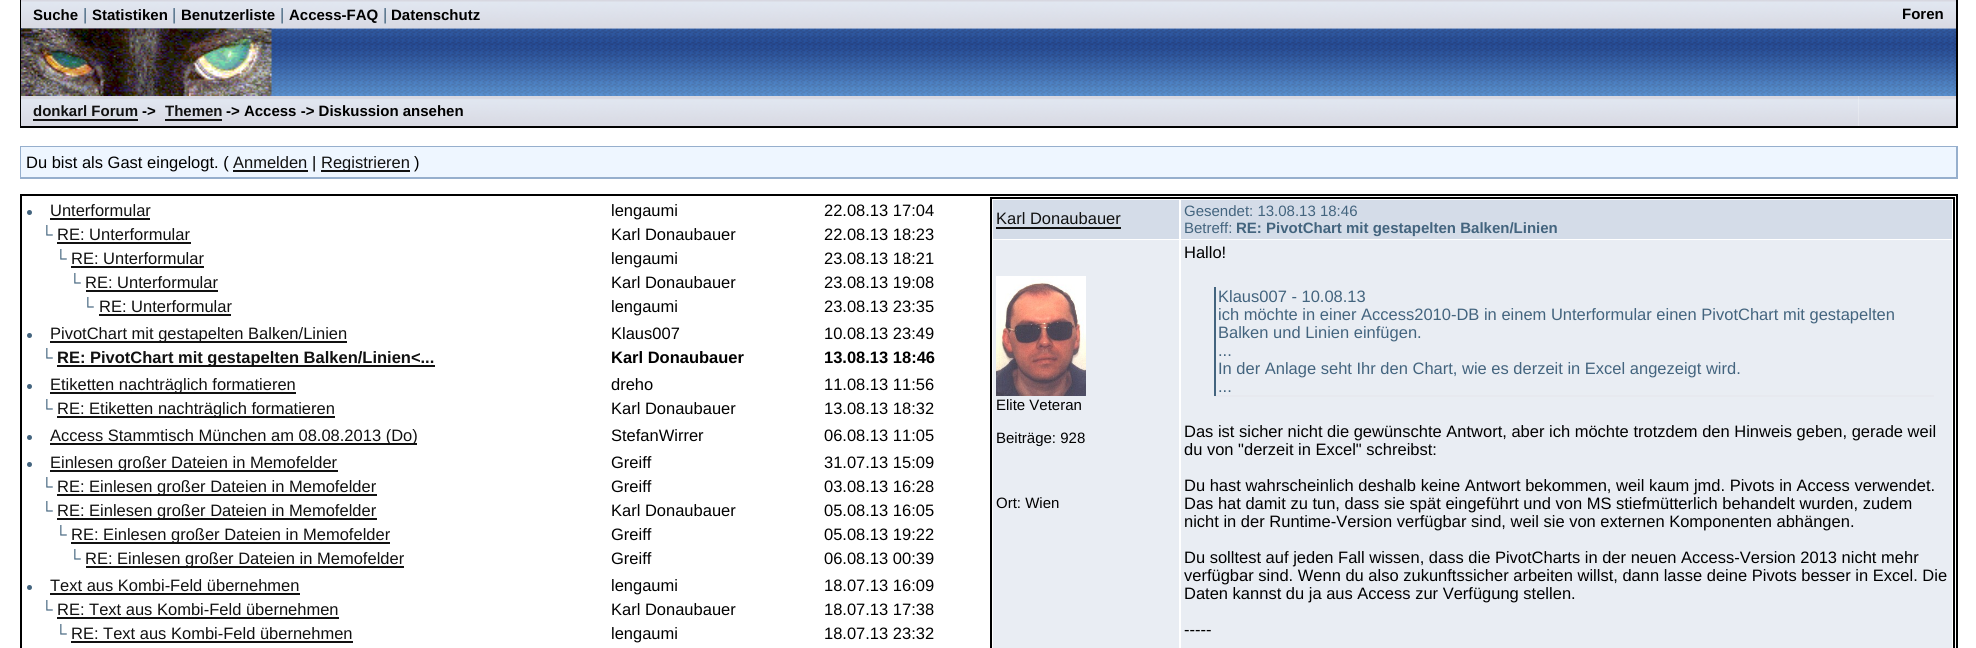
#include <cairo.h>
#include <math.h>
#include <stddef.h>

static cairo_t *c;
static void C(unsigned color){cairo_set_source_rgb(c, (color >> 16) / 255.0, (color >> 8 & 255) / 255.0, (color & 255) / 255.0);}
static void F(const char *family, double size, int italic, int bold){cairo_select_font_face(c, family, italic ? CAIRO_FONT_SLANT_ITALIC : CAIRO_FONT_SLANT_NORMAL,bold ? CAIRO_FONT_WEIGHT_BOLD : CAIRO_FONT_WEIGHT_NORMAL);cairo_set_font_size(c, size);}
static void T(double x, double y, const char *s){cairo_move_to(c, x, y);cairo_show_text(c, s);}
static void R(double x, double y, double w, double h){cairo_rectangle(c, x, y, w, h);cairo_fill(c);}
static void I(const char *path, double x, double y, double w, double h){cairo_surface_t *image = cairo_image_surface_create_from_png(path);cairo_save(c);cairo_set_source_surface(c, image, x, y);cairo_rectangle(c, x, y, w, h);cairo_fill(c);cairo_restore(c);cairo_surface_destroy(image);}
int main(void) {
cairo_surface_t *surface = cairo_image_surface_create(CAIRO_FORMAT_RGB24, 1976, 648);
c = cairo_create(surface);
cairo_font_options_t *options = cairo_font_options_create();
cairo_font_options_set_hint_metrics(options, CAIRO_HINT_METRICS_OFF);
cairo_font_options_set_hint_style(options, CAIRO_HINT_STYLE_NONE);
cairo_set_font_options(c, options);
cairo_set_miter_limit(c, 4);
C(0xffffff);
cairo_paint(c);
cairo_rectangle(c,21,-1,1936,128);
C(0x000000);
cairo_stroke(c);
I("1.png",21,0,1935,29);
F("Liberation Sans",15,0,1);
T(33,20,"Suche");
F("Liberation Sans",16.5,0,0);
C(0x43647e);
T(83,20,"|");
F("Liberation Sans",15,0,1);
C(0x000000);
T(92,20,"Statistiken");
F("Liberation Sans",16.5,0,0);
C(0x43647e);
T(172,20,"|");
F("Liberation Sans",15,0,1);
C(0x000000);
T(181,20,"Benutzerliste");
F("Liberation Sans",16.5,0,0);
C(0x43647e);
T(280,20,"|");
F("Liberation Sans",15,0,1);
C(0x000000);
T(289,20,"Access-FAQ");
F("Liberation Sans",16.5,0,0);
C(0x43647e);
T(383,20,"|");
F("Liberation Sans",15,0,1);
C(0x000000);
T(391,20,"Datenschutz");
T(1902,19,"Foren");
I("2.png",21,28,1935,68);
I("3.png",21,28,251,68);
I("4.png",21,96,1838,30);
C(0x111111);
T(33,116,"donkarl Forum");
R(33,119,105,2);
C(0x000000);
T(142,116,"->");
C(0x111111);
T(165,116,"Themen");
R(165,119,57,2);
C(0x000000);
T(226,116,"-> Access -> Diskussion ansehen");
I("5.png",1858,96,98,30);
cairo_rectangle(c,21,147,1936,31);
C(0x96afcd);
cairo_stroke(c);
C(0xeef6ff);
R(21,147,1935,30);
F("Liberation Sans",16.5,0,0);
C(0x000000);
T(26,168,"Du bist als Gast eingelogt. (");
C(0x111111);
T(233,168,"Anmelden");
R(233,170,75,2);
C(0x000000);
T(312,168,"|");
C(0x111111);
R(321,170,89,2);
T(321,168,"Registrieren");
C(0x000000);
T(414,168,")");
cairo_rectangle(c,21,195,1936,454);
cairo_stroke(c);
C(0x43647e);
cairo_arc(c,29.5,212.5,2.5,0,2 * M_PI);
cairo_fill(c);
C(0x111111);
T(50,216,"Unterformular");
R(50,218,100,2);
C(0x000000);
T(611,216,"lengaumi");
T(824,216,"22.08.13 17:04");
C(0x43647e);
T(41,240,"└");
C(0x111111);
T(57,240,"RE: Unterformular");
R(57,242,134,2);
C(0x000000);
T(611,240,"Karl Donaubauer");
T(824,240,"22.08.13 18:23");
C(0x43647e);
T(55,264,"└");
C(0x111111);
T(71,264,"RE: Unterformular");
R(71,266,133,2);
C(0x000000);
T(611,264,"lengaumi");
T(824,264,"23.08.13 18:21");
C(0x43647e);
T(69,288,"└");
C(0x111111);
T(85,288,"RE: Unterformular");
R(86,290,132,2);
C(0x000000);
T(611,288,"Karl Donaubauer");
T(824,288,"23.08.13 19:08");
C(0x43647e);
T(82,312,"└");
C(0x111111);
T(99,312,"RE: Unterformular");
R(99,314,132,2);
C(0x000000);
T(611,312,"lengaumi");
T(824,312,"23.08.13 23:35");
C(0x43647e);
cairo_new_path(c);
cairo_arc(c,29.5,335.5,2.5,0,2 * M_PI);
cairo_fill(c);
C(0x111111);
R(50,341,297,2);
T(50,339,"PivotChart mit gestapelten Balken/Linien");
C(0x000000);
T(611,339,"Klaus007");
T(824,339,"10.08.13 23:49");
C(0x43647e);
T(41,363,"└");
C(0x111111);
R(57,365,378,2);
F("Liberation Sans",16.5,0,1);
T(57,363,"RE: PivotChart mit gestapelten Balken/Linien<...");
C(0x000000);
T(611,363,"Karl Donaubauer");
T(824,363,"13.08.13 18:46");
C(0x43647e);
cairo_new_path(c);
cairo_arc(c,29.5,386.5,2.5,0,2 * M_PI);
cairo_fill(c);
C(0x111111);
R(50,392,246,2);
F("Liberation Sans",16.5,0,0);
T(50,390,"Etiketten nachträglich formatieren");
C(0x000000);
T(611,390,"dreho");
T(824,390,"11.08.13 11:56");
C(0x43647e);
T(41,414,"└");
C(0x111111);
R(57,416,278,2);
T(57,414,"RE: Etiketten nachträglich formatieren");
C(0x000000);
T(611,414,"Karl Donaubauer");
T(824,414,"13.08.13 18:32");
C(0x43647e);
cairo_new_path(c);
cairo_arc(c,29.5,437.5,2.5,0,2 * M_PI);
cairo_fill(c);
C(0x111111);
R(50,443,367,2);
T(50,441,"Access Stammtisch München am 08.08.2013 (Do)");
C(0x000000);
T(611,441,"StefanWirrer");
T(824,441,"06.08.13 11:05");
C(0x43647e);
cairo_new_path(c);
cairo_arc(c,29.5,464.5,2.5,0,2 * M_PI);
cairo_fill(c);
C(0x111111);
R(50,470,288,2);
T(50,468,"Einlesen großer Dateien in Memofelder");
C(0x000000);
T(611,468,"Greiff");
T(824,468,"31.07.13 15:09");
C(0x43647e);
T(41,492,"└");
C(0x111111);
R(57,494,320,2);
T(57,492,"RE: Einlesen großer Dateien in Memofelder");
C(0x000000);
T(611,492,"Greiff");
T(824,492,"03.08.13 16:28");
C(0x43647e);
T(41,516,"└");
C(0x111111);
R(57,518,320,2);
T(57,516,"RE: Einlesen großer Dateien in Memofelder");
C(0x000000);
T(611,516,"Karl Donaubauer");
T(824,516,"05.08.13 16:05");
C(0x43647e);
T(55,540,"└");
C(0x111111);
R(71,542,319,2);
T(71,540,"RE: Einlesen großer Dateien in Memofelder");
C(0x000000);
T(611,540,"Greiff");
T(824,540,"05.08.13 19:22");
C(0x43647e);
T(69,564,"└");
C(0x111111);
R(86,566,318,2);
T(85,564,"RE: Einlesen großer Dateien in Memofelder");
C(0x000000);
T(611,564,"Greiff");
T(824,564,"06.08.13 00:39");
C(0x43647e);
cairo_new_path(c);
cairo_arc(c,29.5,587.5,2.5,0,2 * M_PI);
cairo_fill(c);
C(0x111111);
T(50,591,"Text aus Kombi-Feld übernehmen");
R(50,593,250,2);
C(0x000000);
T(611,591,"lengaumi");
T(824,591,"18.07.13 16:09");
C(0x43647e);
T(41,615,"└");
C(0x111111);
T(57,615,"RE: Text aus Kombi-Feld übernehmen");
R(57,617,282,2);
C(0x000000);
T(611,615,"Karl Donaubauer");
T(824,615,"18.07.13 17:38");
C(0x43647e);
T(55,639,"└");
C(0x111111);
T(71,639,"RE: Text aus Kombi-Feld übernehmen");
R(71,641,282,2);
C(0x000000);
T(611,639,"lengaumi");
T(824,639,"18.07.13 23:32");
cairo_rectangle(c,991,198,963,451);
cairo_stroke(c);
C(0xd4dce8);
R(993,200,186,39);
C(0x111111);
T(996,224,"Karl Donaubauer");
R(996,227,125,2);
C(0xd4dce8);
R(1181,200,771,39);
F("Liberation Sans",15,0,0);
C(0x43647e);
T(1184,216,"Gesendet: 13.08.13 18:46");
T(1184,233,"Betreff:");
F("Liberation Sans",15,0,1);
T(1236,233,"RE: PivotChart mit gestapelten Balken/Linien");
C(0xe9edf3);
R(993,240,186,408);
I("6.png",996,276,90,120);
F("Liberation Sans",15,0,0);
C(0x000000);
T(996,410,"Elite Veteran");
T(996,443,"Beiträge: 928");
T(996,508,"Ort: Wien");
C(0xe9edf3);
R(1181,240,771,408);
F("Liberation Sans",16.5,0,0);
C(0x000000);
T(1184,258,"Hallo!");
C(0xe7e9ef);
R(1214,395,720,2);
C(0x43647e);
R(1214,287,2,109);
T(1218,302,"Klaus007 - 10.08.13");
T(1218,320,"ich möchte in einer Access2010-DB in einem Unterformular einen PivotChart mit gestapelten");
T(1218,338,"Balken und Linien einfügen.");
T(1218,356,"...");
T(1218,374,"In der Anlage seht Ihr den Chart, wie es derzeit in Excel angezeigt wird.");
T(1218,392,"...");
C(0x000000);
T(1184,437,"Das ist sicher nicht die gewünschte Antwort, aber ich möchte trotzdem den Hinweis geben, gerade weil");
T(1184,455,"du von \"derzeit in Excel\" schreibst:");
T(1184,491,"Du hast wahrscheinlich deshalb keine Antwort bekommen, weil kaum jmd. Pivots in Access verwendet.");
T(1184,509,"Das hat damit zu tun, dass sie spät eingeführt und von MS stiefmütterlich behandelt wurden, zudem");
T(1184,527,"nicht in der Runtime-Version verfügbar sind, weil sie von externen Komponenten abhängen.");
T(1184,563,"Du solltest auf jeden Fall wissen, dass die PivotCharts in der neuen Access-Version 2013 nicht mehr");
T(1184,581,"verfügbar sind. Wenn du also zukunftssicher arbeiten willst, dann lasse deine Pivots besser in Excel. Die");
T(1184,599,"Daten kannst du ja aus Access zur Verfügung stellen.");
T(1184,635,"-----");
cairo_surface_write_to_png(surface, "o.png");
cairo_font_options_destroy(options);
cairo_destroy(c);
cairo_surface_destroy(surface);
return 0;
}
